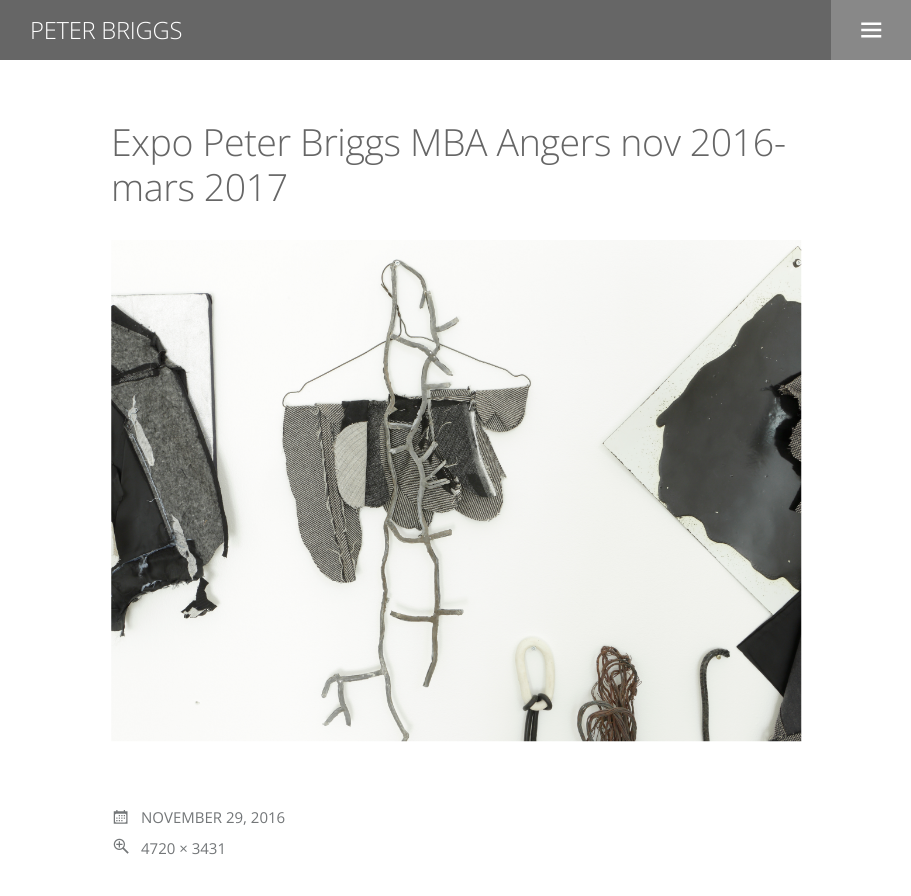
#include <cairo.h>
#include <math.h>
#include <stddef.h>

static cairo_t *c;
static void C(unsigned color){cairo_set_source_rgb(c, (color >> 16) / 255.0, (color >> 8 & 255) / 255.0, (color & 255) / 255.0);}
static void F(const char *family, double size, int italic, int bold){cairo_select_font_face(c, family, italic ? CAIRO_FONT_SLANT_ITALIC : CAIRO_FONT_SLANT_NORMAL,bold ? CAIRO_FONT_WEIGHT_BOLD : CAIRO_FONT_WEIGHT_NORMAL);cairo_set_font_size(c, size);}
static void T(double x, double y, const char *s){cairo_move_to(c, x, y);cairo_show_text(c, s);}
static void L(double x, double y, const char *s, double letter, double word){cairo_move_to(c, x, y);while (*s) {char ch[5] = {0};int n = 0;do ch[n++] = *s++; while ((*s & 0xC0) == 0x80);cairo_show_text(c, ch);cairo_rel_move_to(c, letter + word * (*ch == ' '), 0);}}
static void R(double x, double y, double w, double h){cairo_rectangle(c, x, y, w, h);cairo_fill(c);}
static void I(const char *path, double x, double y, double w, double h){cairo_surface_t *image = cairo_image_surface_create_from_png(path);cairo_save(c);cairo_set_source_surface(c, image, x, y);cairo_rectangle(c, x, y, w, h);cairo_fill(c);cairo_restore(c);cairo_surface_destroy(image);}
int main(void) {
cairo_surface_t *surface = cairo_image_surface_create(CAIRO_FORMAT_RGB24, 911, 896);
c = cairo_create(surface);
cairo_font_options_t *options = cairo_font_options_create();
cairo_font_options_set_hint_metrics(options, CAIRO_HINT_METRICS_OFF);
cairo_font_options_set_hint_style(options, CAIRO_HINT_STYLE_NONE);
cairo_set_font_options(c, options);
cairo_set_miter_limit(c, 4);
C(0xffffff);
cairo_paint(c);
C(0x666666);
R(0,0,831,60);
F("Open Sans Light",23.75,0,0);
C(0xffffff);
L(30,39,"PETER BRIGGS",-.25,0);
C(0x888888);
R(831,0,80,60);
I("1.png",861,22,21,16);
F("Open Sans Light",37.5,0,0);
C(0x666666);
L(111,156,"Expo Peter Briggs MBA Angers nov 2016-",-.4,0);
L(111,201,"mars 2017",-.4,0);
I("2.png",111,240,691,502);
I("3.png",113,810,15,14);
F("Open Sans",15,0,0);
C(0x737678);
T(141,823,"NOVEMBER 29, 2016");
I("4.png",113,838,16,16);
T(141,854,"4720 × 3431");
cairo_surface_write_to_png(surface, "o.png");
cairo_font_options_destroy(options);
cairo_destroy(c);
cairo_surface_destroy(surface);
return 0;
}
